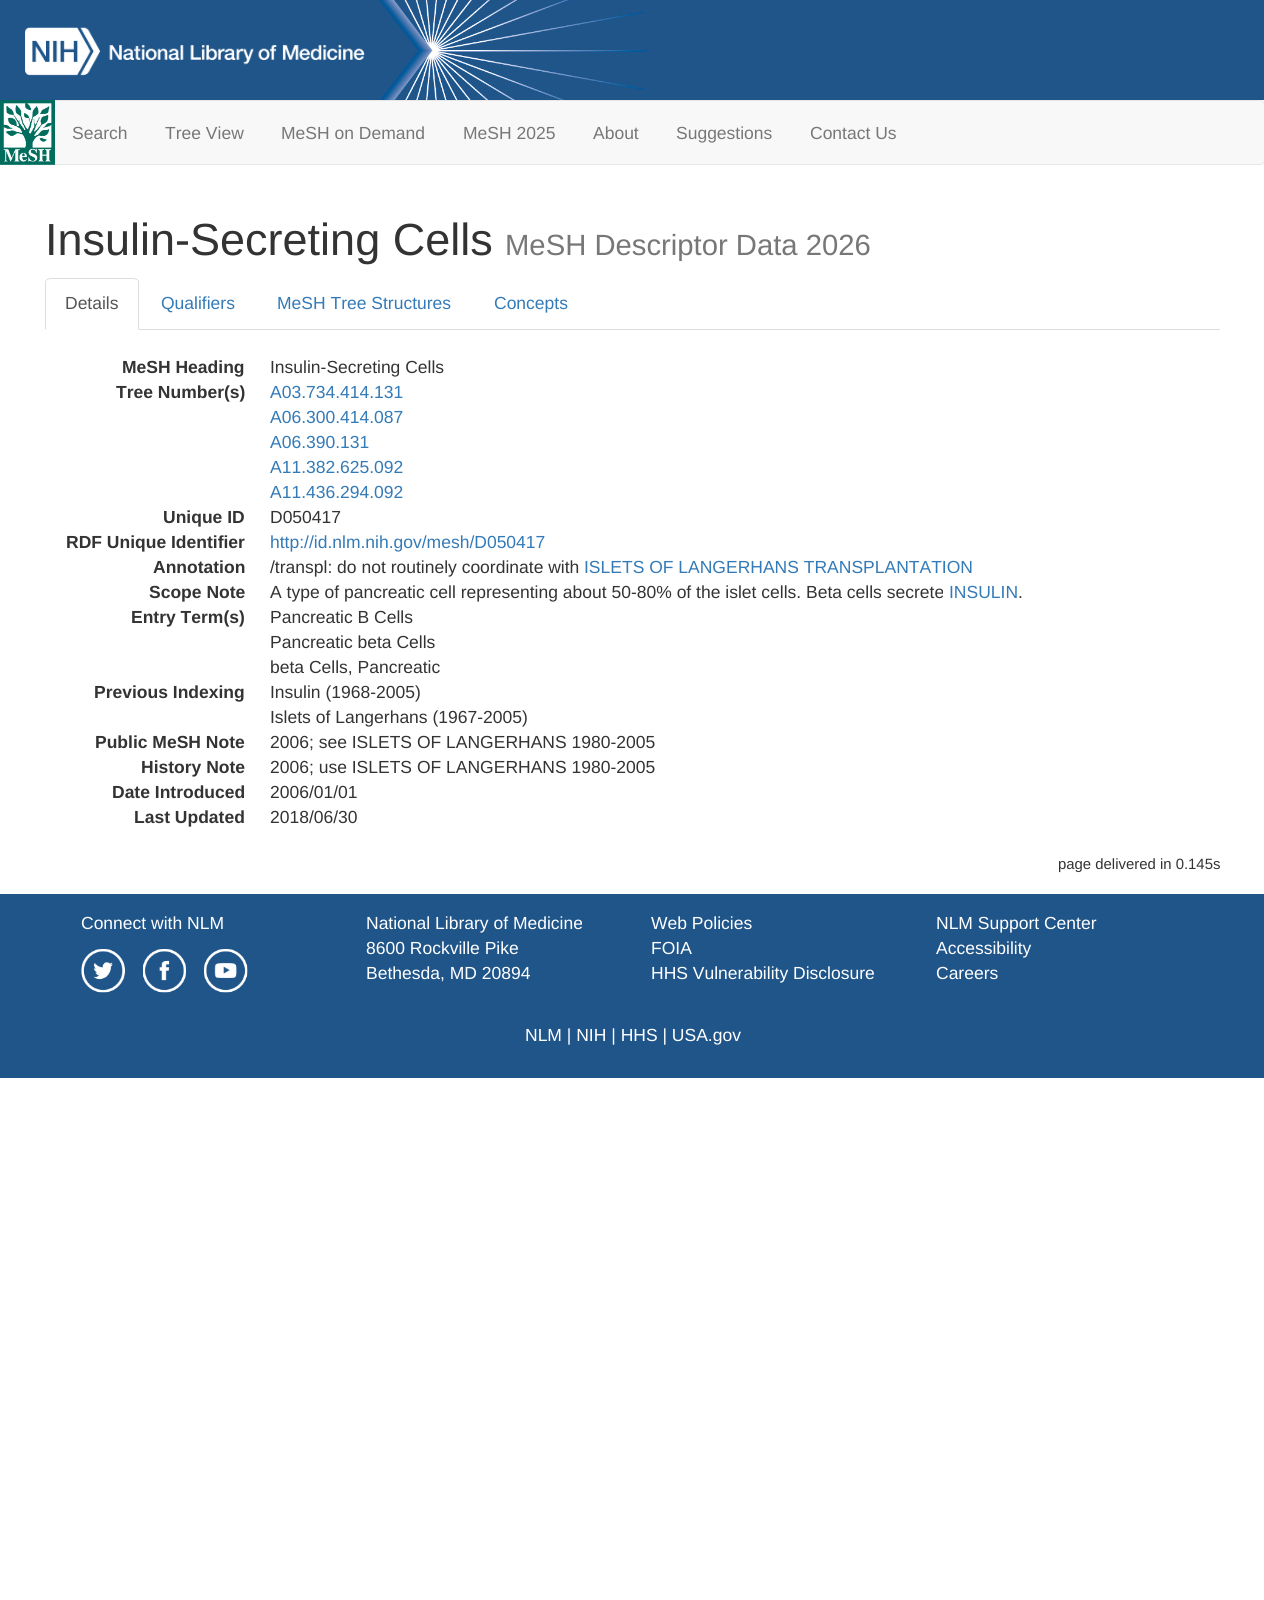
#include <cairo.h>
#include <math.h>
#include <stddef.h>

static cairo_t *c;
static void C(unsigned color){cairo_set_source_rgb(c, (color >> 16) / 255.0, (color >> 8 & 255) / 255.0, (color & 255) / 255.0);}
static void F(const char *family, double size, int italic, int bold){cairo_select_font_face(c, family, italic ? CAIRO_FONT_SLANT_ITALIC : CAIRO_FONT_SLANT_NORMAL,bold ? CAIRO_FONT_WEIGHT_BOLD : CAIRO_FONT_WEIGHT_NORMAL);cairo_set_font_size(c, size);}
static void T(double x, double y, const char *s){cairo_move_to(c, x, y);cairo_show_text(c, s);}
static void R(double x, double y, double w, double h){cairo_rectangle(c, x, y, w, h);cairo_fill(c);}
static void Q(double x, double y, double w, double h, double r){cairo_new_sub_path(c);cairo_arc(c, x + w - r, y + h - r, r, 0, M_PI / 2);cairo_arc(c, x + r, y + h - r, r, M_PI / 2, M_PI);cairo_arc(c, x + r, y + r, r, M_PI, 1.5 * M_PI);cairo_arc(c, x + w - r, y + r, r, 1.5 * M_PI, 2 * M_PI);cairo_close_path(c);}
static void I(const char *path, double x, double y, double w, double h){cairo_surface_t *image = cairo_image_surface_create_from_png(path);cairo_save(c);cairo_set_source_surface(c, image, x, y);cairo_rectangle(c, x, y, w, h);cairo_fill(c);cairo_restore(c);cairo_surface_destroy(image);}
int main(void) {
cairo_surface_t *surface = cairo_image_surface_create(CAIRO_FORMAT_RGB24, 1264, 1600);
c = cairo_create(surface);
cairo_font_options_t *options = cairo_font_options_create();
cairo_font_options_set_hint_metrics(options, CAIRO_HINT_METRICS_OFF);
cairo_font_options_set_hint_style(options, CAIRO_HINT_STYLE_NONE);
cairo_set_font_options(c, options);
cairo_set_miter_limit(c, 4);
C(0xffffff);
cairo_paint(c);
C(0x20558a);
R(0,0,1264,100);
I("1.png",379,0,270,100);
I("2.png",25,27,340,49);
C(0xf8f8f8);
Q(.5,100.5,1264,64,4.5);
cairo_fill_preserve(c);
C(0xe7e7e7);
cairo_set_line_width(c,1);
cairo_stroke(c);
I("3.png",0,100,55,65);
F("Liberation Sans",17.5,0,0);
C(0x777777);
T(72,139,"Search");
T(165,139,"Tree View");
T(281,139,"MeSH on Demand");
T(463,139,"MeSH 2025");
T(593,139,"About");
T(676,139,"Suggestions");
T(810,139,"Contact Us");
F("Liberation Sans",45,0,0);
C(0x333333);
T(45,255,"Insulin-Secreting Cells");
F("Liberation Sans",29.25,0,0);
C(0x777777);
T(505,255,"MeSH Descriptor Data 2026");
C(0xdddddd);
R(139,329,1081,1);
cairo_new_path(c);
cairo_move_to(c,50,278);
cairo_line_to(c,47,279);
cairo_line_to(c,47,280);
cairo_line_to(c,50,279);
cairo_line_to(c,134,279);
cairo_line_to(c,137,280);
cairo_line_to(c,137,279);
cairo_line_to(c,134,278);
cairo_close_path(c);
cairo_fill(c);
cairo_new_path(c);
cairo_move_to(c,137,279);
cairo_line_to(c,139,281);
cairo_line_to(c,139,330);
cairo_line_to(c,138,329);
cairo_line_to(c,138,281);
cairo_line_to(c,137,280);
cairo_close_path(c);
cairo_fill(c);
cairo_new_path(c);
cairo_move_to(c,45,330);
cairo_line_to(c,46,329);
cairo_line_to(c,46,281);
cairo_line_to(c,47,280);
cairo_line_to(c,47,279);
cairo_curve_to(c,46,280,45,281,45,282);
cairo_close_path(c);
cairo_fill(c);
F("Liberation Sans",17.5,0,0);
C(0x555555);
T(65,309,"Details");
C(0x337ab7);
T(161,309,"Qualifiers");
T(277,309,"MeSH Tree Structures");
T(494,309,"Concepts");
F("Liberation Sans",17.5,0,1);
C(0x333333);
T(122,373,"MeSH Heading");
F("Liberation Sans",17.5,0,0);
T(270,373,"Insulin-Secreting Cells");
F("Liberation Sans",17.5,0,1);
T(116,398,"Tree Number(s)");
F("Liberation Sans",17.5,0,0);
C(0x337ab7);
T(270,398,"A03.734.414.131");
T(270,423,"A06.300.414.087");
T(270,448,"A06.390.131");
T(270,473,"A11.382.625.092");
T(270,498,"A11.436.294.092");
F("Liberation Sans",17.5,0,1);
C(0x333333);
T(163,523,"Unique ID");
F("Liberation Sans",17.5,0,0);
T(270,523,"D050417");
F("Liberation Sans",17.5,0,1);
T(66,548,"RDF Unique Identifier");
F("Liberation Sans",17.5,0,0);
C(0x337ab7);
T(270,548,"http://id.nlm.nih.gov/mesh/D050417");
F("Liberation Sans",17.5,0,1);
C(0x333333);
T(153,573,"Annotation");
F("Liberation Sans",17.5,0,0);
T(270,573,"/transpl: do not routinely coordinate with");
C(0x337ab7);
T(584,573,"ISLETS OF LANGERHANS TRANSPLANTATION");
F("Liberation Sans",17.5,0,1);
C(0x333333);
T(149,598,"Scope Note");
F("Liberation Sans",17.5,0,0);
T(270,598,"A type of pancreatic cell representing about 50-80% of the islet cells. Beta cells secrete");
C(0x337ab7);
T(949,598,"INSULIN");
C(0x333333);
T(1018,598,".");
F("Liberation Sans",17.5,0,1);
T(131,623,"Entry Term(s)");
F("Liberation Sans",17.5,0,0);
T(270,623,"Pancreatic B Cells");
T(270,648,"Pancreatic beta Cells");
T(270,673,"beta Cells, Pancreatic");
F("Liberation Sans",17.5,0,1);
T(94,698,"Previous Indexing");
F("Liberation Sans",17.5,0,0);
T(270,698,"Insulin (1968-2005)");
T(270,723,"Islets of Langerhans (1967-2005)");
F("Liberation Sans",17.5,0,1);
T(95,748,"Public MeSH Note");
F("Liberation Sans",17.5,0,0);
T(270,748,"2006; see ISLETS OF LANGERHANS 1980-2005");
F("Liberation Sans",17.5,0,1);
T(141,773,"History Note");
F("Liberation Sans",17.5,0,0);
T(270,773,"2006; use ISLETS OF LANGERHANS 1980-2005");
F("Liberation Sans",17.5,0,1);
T(112,798,"Date Introduced");
F("Liberation Sans",17.5,0,0);
T(270,798,"2006/01/01");
F("Liberation Sans",17.5,0,1);
T(134,823,"Last Updated");
F("Liberation Sans",17.5,0,0);
T(270,823,"2018/06/30");
F("Liberation Sans",14.9,0,0);
T(1058,869,"page delivered in 0.145s");
C(0x20558a);
R(0,894,1264,184);
F("Liberation Sans",17.5,0,0);
C(0xffffff);
T(81,929,"Connect with NLM");
I("4.png",81,949,44,44);
I("5.png",143,949,43,44);
I("6.png",204,949,44,44);
T(366,929,"National Library of Medicine");
T(366,954,"8600 Rockville Pike");
T(366,979,"Bethesda, MD 20894");
T(651,929,"Web Policies");
T(651,954,"FOIA");
T(651,979,"HHS Vulnerability Disclosure");
T(936,929,"NLM Support Center");
T(936,954,"Accessibility");
T(936,979,"Careers");
T(525,1041,"NLM | NIH | HHS | USA.gov");
cairo_surface_write_to_png(surface, "o.png");
cairo_font_options_destroy(options);
cairo_destroy(c);
cairo_surface_destroy(surface);
return 0;
}
